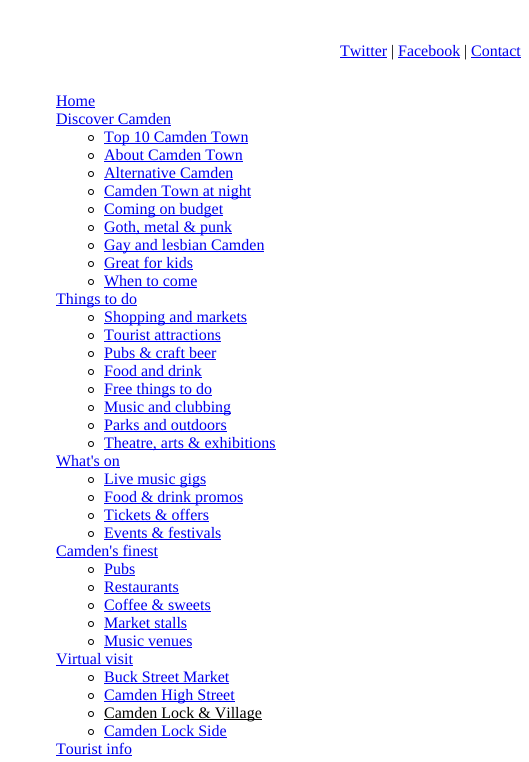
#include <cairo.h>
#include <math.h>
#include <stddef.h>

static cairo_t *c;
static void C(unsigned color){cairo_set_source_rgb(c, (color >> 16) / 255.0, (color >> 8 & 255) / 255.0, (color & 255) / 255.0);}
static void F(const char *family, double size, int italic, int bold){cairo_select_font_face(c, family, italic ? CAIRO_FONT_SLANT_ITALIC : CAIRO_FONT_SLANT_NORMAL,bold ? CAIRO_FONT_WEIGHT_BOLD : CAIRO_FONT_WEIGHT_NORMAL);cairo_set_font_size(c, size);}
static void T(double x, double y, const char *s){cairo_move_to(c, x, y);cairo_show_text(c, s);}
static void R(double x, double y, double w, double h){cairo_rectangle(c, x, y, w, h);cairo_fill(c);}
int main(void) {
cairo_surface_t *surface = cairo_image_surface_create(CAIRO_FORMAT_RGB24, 529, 762);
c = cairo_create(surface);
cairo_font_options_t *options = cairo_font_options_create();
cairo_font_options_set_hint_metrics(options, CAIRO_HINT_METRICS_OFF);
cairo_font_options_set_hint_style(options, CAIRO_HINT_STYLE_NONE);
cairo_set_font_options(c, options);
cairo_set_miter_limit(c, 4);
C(0xffffff);
cairo_paint(c);
F("Liberation Serif",16,0,0);
C(0x0000ee);
T(340,56,"Twitter");
R(340,57,47,1);
C(0x000000);
T(391,56,"|");
C(0x0000ee);
T(398,56,"Facebook");
R(398,57,62,1);
C(0x000000);
T(464,56,"|");
C(0x0000ee);
T(471,56,"Contact");
R(471,57,50,1);
T(56,106,"Home");
R(56,107,39,1);
T(56,124,"Discover Camden");
R(56,125,115,1);
cairo_new_path(c);
cairo_arc(c,91,138,2.5,0,2 * M_PI);
C(0x000000);
cairo_set_line_width(c,1);
cairo_stroke(c);
C(0x0000ee);
R(104,143,144,1);
T(104,142,"Top 10 Camden Town");
cairo_new_path(c);
cairo_arc(c,91,156,2.5,0,2 * M_PI);
C(0x000000);
cairo_stroke(c);
C(0x0000ee);
T(104,160,"About Camden Town");
R(104,161,139,1);
cairo_new_path(c);
cairo_arc(c,91,174,2.5,0,2 * M_PI);
C(0x000000);
cairo_stroke(c);
C(0x0000ee);
T(104,178,"Alternative Camden");
R(104,179,129,1);
cairo_new_path(c);
cairo_arc(c,91,192,2.5,0,2 * M_PI);
C(0x000000);
cairo_stroke(c);
C(0x0000ee);
R(104,197,147,1);
T(104,196,"Camden Town at night");
cairo_new_path(c);
cairo_arc(c,91,210,2.5,0,2 * M_PI);
C(0x000000);
cairo_stroke(c);
C(0x0000ee);
R(104,215,119,1);
T(104,214,"Coming on budget");
cairo_new_path(c);
cairo_arc(c,91,228,2.5,0,2 * M_PI);
C(0x000000);
cairo_stroke(c);
C(0x0000ee);
R(104,233,128,1);
T(104,232,"Goth, metal & punk");
cairo_new_path(c);
cairo_arc(c,91,246,2.5,0,2 * M_PI);
C(0x000000);
cairo_stroke(c);
C(0x0000ee);
R(104,251,160,1);
T(104,250,"Gay and lesbian Camden");
cairo_new_path(c);
cairo_arc(c,91,264,2.5,0,2 * M_PI);
C(0x000000);
cairo_stroke(c);
C(0x0000ee);
T(104,268,"Great for kids");
R(104,269,89,1);
cairo_new_path(c);
cairo_arc(c,91,282,2.5,0,2 * M_PI);
C(0x000000);
cairo_stroke(c);
C(0x0000ee);
T(104,286,"When to come");
R(104,287,93,1);
R(56,305,81,1);
T(56,304,"Things to do");
cairo_new_path(c);
cairo_arc(c,91,318,2.5,0,2 * M_PI);
C(0x000000);
cairo_stroke(c);
C(0x0000ee);
R(104,323,143,1);
T(104,322,"Shopping and markets");
cairo_new_path(c);
cairo_arc(c,91,336,2.5,0,2 * M_PI);
C(0x000000);
cairo_stroke(c);
C(0x0000ee);
T(104,340,"Tourist attractions");
R(104,341,117,1);
cairo_new_path(c);
cairo_arc(c,91,354,2.5,0,2 * M_PI);
C(0x000000);
cairo_stroke(c);
C(0x0000ee);
T(104,358,"Pubs & craft beer");
R(104,359,112,1);
cairo_new_path(c);
cairo_arc(c,91,372,2.5,0,2 * M_PI);
C(0x000000);
cairo_stroke(c);
C(0x0000ee);
T(104,376,"Food and drink");
R(104,377,98,1);
cairo_new_path(c);
cairo_arc(c,91,390,2.5,0,2 * M_PI);
C(0x000000);
cairo_stroke(c);
C(0x0000ee);
R(104,395,108,1);
T(104,394,"Free things to do");
cairo_new_path(c);
cairo_arc(c,91,408,2.5,0,2 * M_PI);
C(0x000000);
cairo_stroke(c);
C(0x0000ee);
R(104,413,127,1);
T(104,412,"Music and clubbing");
cairo_new_path(c);
cairo_arc(c,91,426,2.5,0,2 * M_PI);
C(0x000000);
cairo_stroke(c);
C(0x0000ee);
T(104,430,"Parks and outdoors");
R(104,431,123,1);
cairo_new_path(c);
cairo_arc(c,91,444,2.5,0,2 * M_PI);
C(0x000000);
cairo_stroke(c);
C(0x0000ee);
R(104,449,172,1);
T(104,448,"Theatre, arts & exhibitions");
T(56,466,"What's on");
R(56,467,64,1);
cairo_new_path(c);
cairo_arc(c,91,480,2.5,0,2 * M_PI);
C(0x000000);
cairo_stroke(c);
C(0x0000ee);
R(104,485,102,1);
T(104,484,"Live music gigs");
cairo_new_path(c);
cairo_arc(c,91,498,2.5,0,2 * M_PI);
C(0x000000);
cairo_stroke(c);
C(0x0000ee);
R(104,503,139,1);
T(104,502,"Food & drink promos");
cairo_new_path(c);
cairo_arc(c,91,516,2.5,0,2 * M_PI);
C(0x000000);
cairo_stroke(c);
C(0x0000ee);
T(104,520,"Tickets & offers");
R(104,521,105,1);
cairo_new_path(c);
cairo_arc(c,91,534,2.5,0,2 * M_PI);
C(0x000000);
cairo_stroke(c);
C(0x0000ee);
T(104,538,"Events & festivals");
R(104,539,117,1);
T(56,556,"Camden's finest");
R(56,557,102,1);
cairo_new_path(c);
cairo_arc(c,91,570,2.5,0,2 * M_PI);
C(0x000000);
cairo_stroke(c);
C(0x0000ee);
T(104,574,"Pubs");
R(104,575,31,1);
cairo_new_path(c);
cairo_arc(c,91,588,2.5,0,2 * M_PI);
C(0x000000);
cairo_stroke(c);
C(0x0000ee);
T(104,592,"Restaurants");
R(104,593,75,1);
cairo_new_path(c);
cairo_arc(c,91,606,2.5,0,2 * M_PI);
C(0x000000);
cairo_stroke(c);
C(0x0000ee);
T(104,610,"Coffee & sweets");
R(104,611,107,1);
cairo_new_path(c);
cairo_arc(c,91,624,2.5,0,2 * M_PI);
C(0x000000);
cairo_stroke(c);
C(0x0000ee);
T(104,628,"Market stalls");
R(104,629,83,1);
cairo_new_path(c);
cairo_arc(c,91,642,2.5,0,2 * M_PI);
C(0x000000);
cairo_stroke(c);
C(0x0000ee);
T(104,646,"Music venues");
R(104,647,88,1);
T(56,664,"Virtual visit");
R(56,665,77,1);
cairo_new_path(c);
cairo_arc(c,91,678,2.5,0,2 * M_PI);
C(0x000000);
cairo_stroke(c);
C(0x0000ee);
T(104,682,"Buck Street Market");
R(104,683,125,1);
cairo_new_path(c);
cairo_arc(c,91,696,2.5,0,2 * M_PI);
C(0x000000);
cairo_stroke(c);
C(0x0000ee);
R(104,701,131,1);
T(104,700,"Camden High Street");
cairo_new_path(c);
cairo_arc(c,91,714,2.5,0,2 * M_PI);
C(0x000000);
cairo_stroke(c);
R(104,719,158,1);
T(104,718,"Camden Lock & Village");
cairo_new_path(c);
cairo_arc(c,91,732,2.5,0,2 * M_PI);
cairo_stroke(c);
C(0x0000ee);
T(104,736,"Camden Lock Side");
R(104,737,123,1);
T(56,754,"Tourist info");
R(56,755,76,1);
cairo_surface_write_to_png(surface, "o.png");
cairo_font_options_destroy(options);
cairo_destroy(c);
cairo_surface_destroy(surface);
return 0;
}
